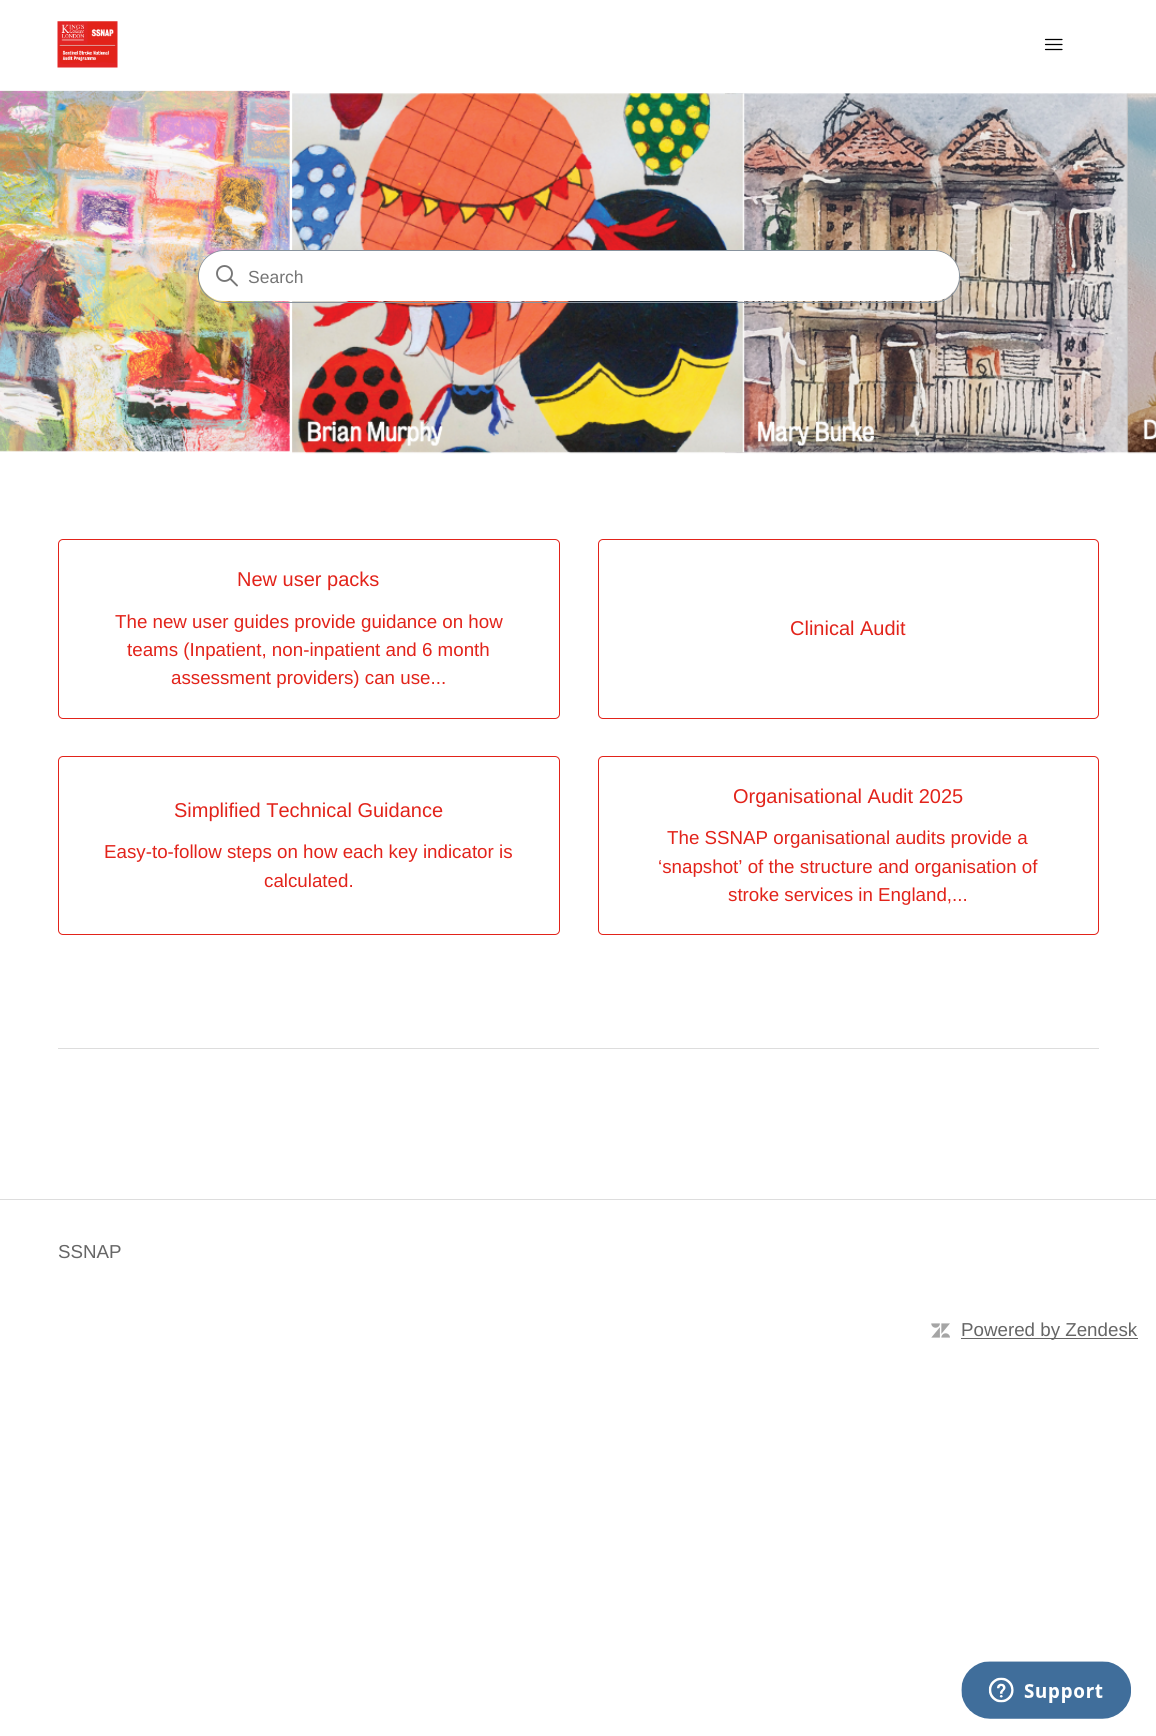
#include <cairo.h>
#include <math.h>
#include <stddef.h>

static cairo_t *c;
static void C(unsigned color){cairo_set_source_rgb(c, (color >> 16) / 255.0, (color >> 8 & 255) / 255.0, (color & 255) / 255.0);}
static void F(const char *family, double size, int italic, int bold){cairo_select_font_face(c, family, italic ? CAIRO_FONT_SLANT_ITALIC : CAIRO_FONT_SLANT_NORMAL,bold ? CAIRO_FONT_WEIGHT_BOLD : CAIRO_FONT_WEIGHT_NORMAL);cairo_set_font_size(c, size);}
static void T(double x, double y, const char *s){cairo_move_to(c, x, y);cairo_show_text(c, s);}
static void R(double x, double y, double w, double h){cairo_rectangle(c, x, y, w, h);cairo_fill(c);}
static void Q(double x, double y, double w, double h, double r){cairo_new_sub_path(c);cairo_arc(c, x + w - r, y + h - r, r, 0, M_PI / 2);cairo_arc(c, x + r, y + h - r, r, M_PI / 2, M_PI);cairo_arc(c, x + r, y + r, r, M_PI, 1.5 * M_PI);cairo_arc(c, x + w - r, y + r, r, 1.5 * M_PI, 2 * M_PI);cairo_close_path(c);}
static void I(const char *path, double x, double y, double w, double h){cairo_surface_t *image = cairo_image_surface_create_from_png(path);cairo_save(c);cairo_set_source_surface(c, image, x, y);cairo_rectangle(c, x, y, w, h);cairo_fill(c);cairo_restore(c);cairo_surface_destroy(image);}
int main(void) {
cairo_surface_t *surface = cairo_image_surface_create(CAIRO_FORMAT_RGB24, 1156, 1736);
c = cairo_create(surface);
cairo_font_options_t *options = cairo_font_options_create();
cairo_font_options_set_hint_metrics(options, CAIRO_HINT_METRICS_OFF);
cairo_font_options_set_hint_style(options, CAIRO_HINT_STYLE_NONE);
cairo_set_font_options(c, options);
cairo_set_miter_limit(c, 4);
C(0xffffff);
cairo_paint(c);
I("1.png",57,21,61,47);
cairo_new_path(c);
cairo_move_to(c,1045.5,39.5);
cairo_line_to(c,1062,39.5);
cairo_move_to(c,1045.5,44.5);
cairo_line_to(c,1062,44.5);
cairo_move_to(c,1045.5,49.5);
cairo_line_to(c,1062,49.5);
C(0x000000);
cairo_set_line_width(c,1.2);
cairo_set_line_cap(c,CAIRO_LINE_CAP_ROUND);
cairo_stroke(c);
I("2.png",0,90,1156,364);
Q(198.5,250.5,761,52,26);
C(0x87929d);
cairo_set_line_width(c,1);
cairo_set_line_cap(c,CAIRO_LINE_CAP_BUTT);
cairo_stroke(c);
C(0xffffff);
Q(199,251,760,50,25);
cairo_fill(c);
cairo_arc(c,224.5,273.5,7.5,0,2 * M_PI);
C(0x777777);
cairo_set_line_width(c,1.9);
cairo_stroke(c);
cairo_new_path(c);
cairo_move_to(c,237,285.5);
cairo_line_to(c,230.5,279);
cairo_set_line_cap(c,CAIRO_LINE_CAP_ROUND);
cairo_stroke(c);
F("Liberation Sans",17.5,0,0);
C(0x757575);
T(248,283,"Search");
Q(58.5,539.5,501,179,4.5);
C(0xe2231a);
cairo_set_line_width(c,1);
cairo_set_line_cap(c,CAIRO_LINE_CAP_BUTT);
cairo_stroke(c);
F("Liberation Sans",20,0,0);
T(237,586,"New user packs");
F("Liberation Sans",18.75,0,0);
T(115,628,"The new user guides provide guidance on how");
T(127,656,"teams (Inpatient, non-inpatient and 6 month");
T(171,684,"assessment providers) can use...");
Q(598.5,539.5,500,179,4.5);
cairo_stroke(c);
F("Liberation Sans",20,0,0);
T(790,635,"Clinical Audit");
Q(58.5,756.5,501,178,4.5);
cairo_stroke(c);
T(174,817,"Simplified Technical Guidance");
F("Liberation Sans",18.75,0,0);
T(104,858,"Easy-to-follow steps on how each key indicator is");
T(264,887,"calculated.");
Q(598.5,756.5,500,178,4.5);
cairo_stroke(c);
F("Liberation Sans",20,0,0);
T(733,803,"Organisational Audit 2025");
F("Liberation Sans",18.75,0,0);
T(667,844,"The SSNAP organisational audits provide a");
T(658,873,"‘snapshot’ of the structure and organisation of");
T(728,901,"stroke services in England,...");
C(0xdddddd);
R(58,1048,1041,1);
R(0,1199,1156,1);
C(0x666666);
T(58,1258,"SSNAP");
I("3.png",931,1323,19,15);
R(961,1338,177,1);
T(961,1336,"Powered by Zendesk");
I("4.png",961,1661,170,58);
cairo_surface_write_to_png(surface, "o.png");
cairo_font_options_destroy(options);
cairo_destroy(c);
cairo_surface_destroy(surface);
return 0;
}
